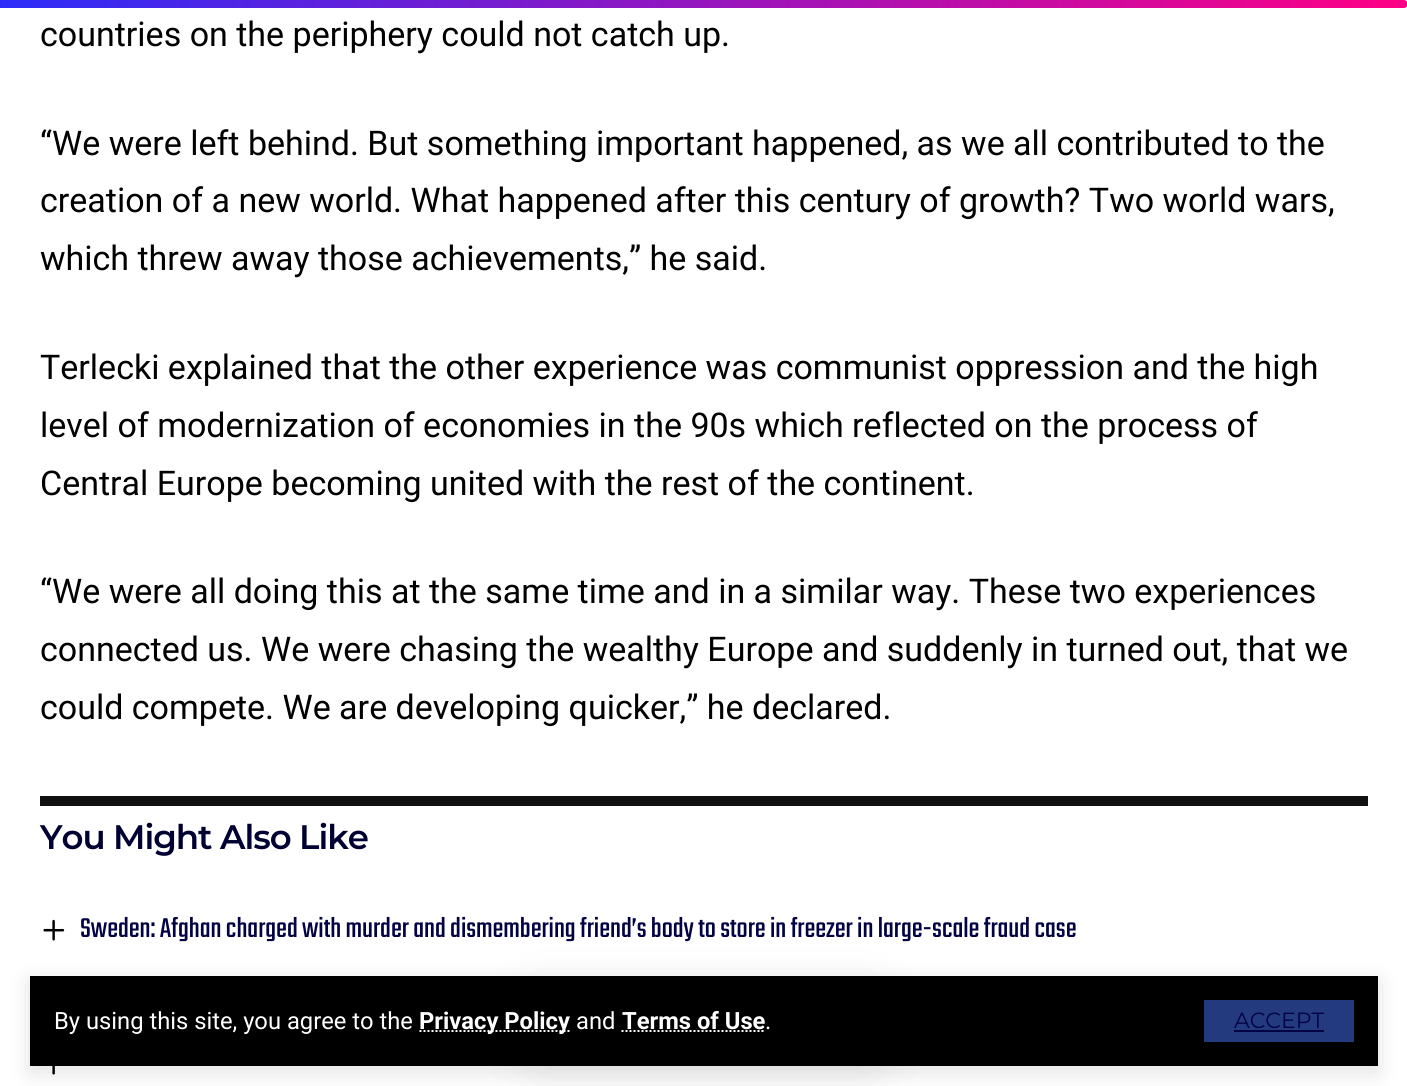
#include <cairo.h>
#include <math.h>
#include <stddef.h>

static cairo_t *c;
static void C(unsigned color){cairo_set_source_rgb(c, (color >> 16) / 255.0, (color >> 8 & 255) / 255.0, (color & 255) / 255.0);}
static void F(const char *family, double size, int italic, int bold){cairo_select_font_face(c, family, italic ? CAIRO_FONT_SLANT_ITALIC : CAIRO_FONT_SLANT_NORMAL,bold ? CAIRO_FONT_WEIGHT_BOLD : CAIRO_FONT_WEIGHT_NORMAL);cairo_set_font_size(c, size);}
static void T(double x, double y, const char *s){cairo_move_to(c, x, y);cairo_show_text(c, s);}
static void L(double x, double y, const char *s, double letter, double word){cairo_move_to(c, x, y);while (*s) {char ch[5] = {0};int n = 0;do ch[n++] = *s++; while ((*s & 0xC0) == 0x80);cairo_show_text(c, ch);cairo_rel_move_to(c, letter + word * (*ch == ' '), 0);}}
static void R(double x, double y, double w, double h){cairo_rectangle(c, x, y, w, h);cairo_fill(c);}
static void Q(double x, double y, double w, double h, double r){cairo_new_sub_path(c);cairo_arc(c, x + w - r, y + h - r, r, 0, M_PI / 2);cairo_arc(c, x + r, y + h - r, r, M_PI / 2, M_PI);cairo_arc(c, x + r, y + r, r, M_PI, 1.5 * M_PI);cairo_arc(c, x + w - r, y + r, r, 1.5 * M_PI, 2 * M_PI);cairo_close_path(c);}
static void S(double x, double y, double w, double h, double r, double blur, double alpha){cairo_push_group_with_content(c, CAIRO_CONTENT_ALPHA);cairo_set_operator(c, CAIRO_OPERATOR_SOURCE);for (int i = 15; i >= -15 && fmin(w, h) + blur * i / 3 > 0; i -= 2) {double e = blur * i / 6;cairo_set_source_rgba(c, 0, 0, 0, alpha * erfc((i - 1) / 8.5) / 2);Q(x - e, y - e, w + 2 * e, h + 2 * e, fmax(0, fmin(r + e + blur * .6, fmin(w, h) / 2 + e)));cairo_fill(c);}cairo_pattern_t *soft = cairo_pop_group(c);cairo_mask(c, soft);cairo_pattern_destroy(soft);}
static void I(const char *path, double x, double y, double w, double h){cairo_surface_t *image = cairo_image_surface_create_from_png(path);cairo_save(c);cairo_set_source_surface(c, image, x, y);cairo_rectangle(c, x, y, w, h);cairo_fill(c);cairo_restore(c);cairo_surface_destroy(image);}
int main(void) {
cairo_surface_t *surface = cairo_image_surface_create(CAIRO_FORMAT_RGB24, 1407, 1086);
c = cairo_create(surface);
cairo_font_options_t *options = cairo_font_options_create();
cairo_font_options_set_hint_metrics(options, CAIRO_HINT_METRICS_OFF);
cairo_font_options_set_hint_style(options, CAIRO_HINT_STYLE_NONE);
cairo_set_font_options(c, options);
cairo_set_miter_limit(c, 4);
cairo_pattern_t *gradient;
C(0xffffff);
cairo_paint(c);
F("Roboto",34,0,0);
C(0x000000);
T(40,46,"countries on the periphery could not catch up.");
T(40,155,"“We were left behind. But something important happened, as we all contributed to the");
T(40,212,"creation of a new world. What happened after this century of growth? Two world wars,");
T(40,270,"which threw away those achievements,” he said.");
T(40,379,"Terlecki explained that the other experience was communist oppression and the high");
T(40,437,"level of modernization of economies in the 90s which reflected on the process of");
T(40,495,"Central Europe becoming united with the rest of the continent.");
T(40,603,"“We were all doing this at the same time and in a similar way. These two experiences");
T(40,661,"connected us. We were chasing the wealthy Europe and suddenly in turned out, that we");
T(40,719,"could compete. We are developing quicker,” he declared.");
C(0x111111);
R(40,796,1328,10);
F("Montserrat SemiBold",34,0,0);
C(0x000032);
L(40,849,"You Might Also Like",-1,0);
I("1.png",43,919,22,22);
F("Teko Light",30,0,0);
C(0x020244);
T(80,937,"Sweden: Afghan charged with murder and dismembering friend’s body to store in freezer in large-scale fraud case");
I("2.png",52,1066,3,9);
C(0x000000);
S(536,992,336,84,0,30,.07);
gradient = cairo_pattern_create_linear(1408,4,0,4);
cairo_pattern_add_color_stop_rgba(gradient,0,1,0,0.518,1);
cairo_pattern_add_color_stop_rgba(gradient,1,0.173,0.173,0.973,1);
cairo_set_source(c,gradient);
cairo_pattern_destroy(gradient);
cairo_new_path(c);
cairo_move_to(c,0,0);
cairo_line_to(c,1404,0);
cairo_curve_to(c,1406,0,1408,2,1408,4);
cairo_curve_to(c,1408,6,1406,8,1404,8);
cairo_line_to(c,0,8);
cairo_close_path(c);
cairo_fill(c);
C(0x000000);
S(30,982,1348,90,0,12,.12);
C(0x000000);
R(30,976,1348,90);
F("Roboto",23.75,0,0);
C(0xffffff);
T(54,1029,"By using this site, you agree to the");
cairo_new_path(c);
cairo_move_to(c,419.5,1031);
cairo_line_to(c,570.5,1031);
cairo_set_dash(c,(double[]){2,2},2,0);
cairo_stroke(c);
F("Roboto",23.75,0,1);
T(419,1029,"Privacy Policy");
F("Roboto",23.75,0,0);
T(576,1029,"and");
F("Roboto",23.75,0,1);
T(622,1029,"Terms of Use");
cairo_new_path(c);
cairo_move_to(c,621.5,1031);
cairo_line_to(c,765.5,1031);
cairo_stroke(c);
F("Roboto",23.75,0,0);
T(765,1029,".");
C(0x233b7e);
R(1204,1000,150,42);
F("Montserrat",22,0,0);
C(0x020244);
T(1234,1028,"ACCEPT");
R(1234,1030,90,2);
cairo_surface_write_to_png(surface, "o.png");
cairo_font_options_destroy(options);
cairo_destroy(c);
cairo_surface_destroy(surface);
return 0;
}
